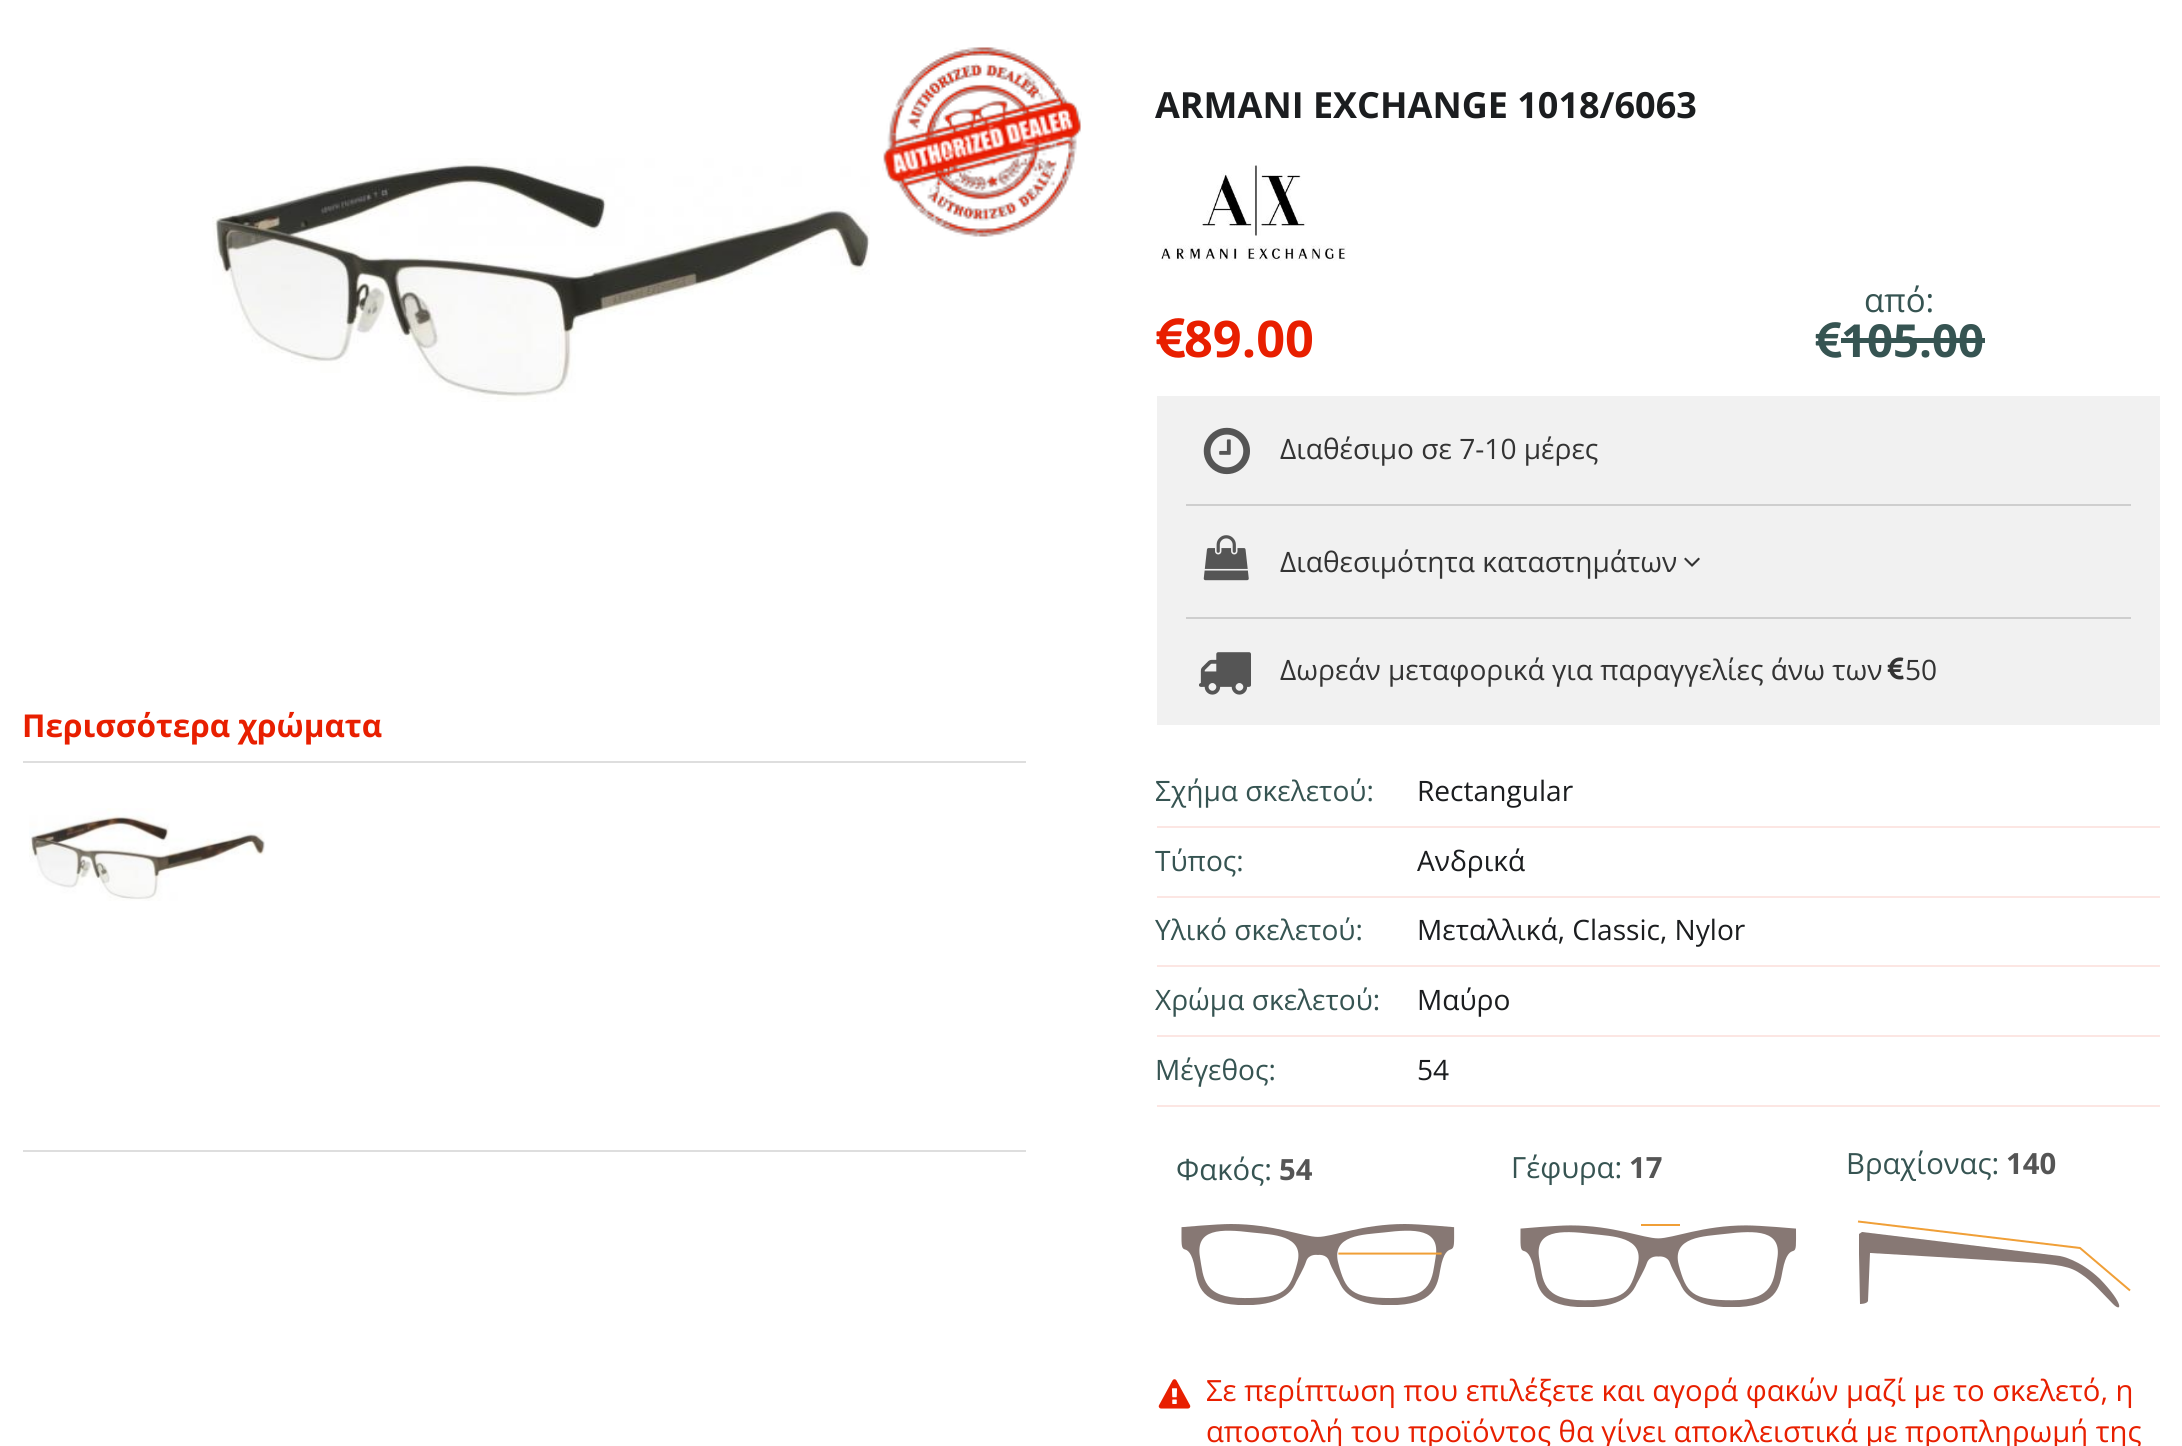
#include <cairo.h>
#include <math.h>
#include <stddef.h>

static cairo_t *c;
static void C(unsigned color){cairo_set_source_rgb(c, (color >> 16) / 255.0, (color >> 8 & 255) / 255.0, (color & 255) / 255.0);}
static void F(const char *family, double size, int italic, int bold){cairo_select_font_face(c, family, italic ? CAIRO_FONT_SLANT_ITALIC : CAIRO_FONT_SLANT_NORMAL,bold ? CAIRO_FONT_WEIGHT_BOLD : CAIRO_FONT_WEIGHT_NORMAL);cairo_set_font_size(c, size);}
static void T(double x, double y, const char *s){cairo_move_to(c, x, y);cairo_show_text(c, s);}
static void R(double x, double y, double w, double h){cairo_rectangle(c, x, y, w, h);cairo_fill(c);}
static void I(const char *path, double x, double y, double w, double h){cairo_surface_t *image = cairo_image_surface_create_from_png(path);cairo_save(c);cairo_set_source_surface(c, image, x, y);cairo_rectangle(c, x, y, w, h);cairo_fill(c);cairo_restore(c);cairo_surface_destroy(image);}
int main(void) {
cairo_surface_t *surface = cairo_image_surface_create(CAIRO_FORMAT_RGB24, 2182, 1446);
c = cairo_create(surface);
cairo_font_options_t *options = cairo_font_options_create();
cairo_font_options_set_hint_metrics(options, CAIRO_HINT_METRICS_OFF);
cairo_font_options_set_hint_style(options, CAIRO_HINT_STYLE_NONE);
cairo_set_font_options(c, options);
cairo_set_miter_limit(c, 4);
C(0xffffff);
cairo_paint(c);
C(0xdedede);
R(23,1150,1003,2);
I("1.png",212,158,658,244);
I("2.png",882,47,200,190);
R(23,761,1003,2);
F("Open Sans",31.5,0,1);
C(0xe81f00);
T(22,737,"Περισσότερα χρώματα");
I("3.png",29,808,236,93);
F("Open Sans",36,0,1);
C(0x1b1d1f);
T(1155,118,"ARMANI EXCHANGE 1018/6063");
I("4.png",1161,165,185,96);
I("5.png",1156,318,29,40);
F("Open Sans",50.5,0,1);
C(0xe81f00);
T(1184,357,"89.00");
F("Open Sans",33,0,0);
C(0x365452);
T(1864,312,"από:");
I("6.png",1815,322,27,36);
F("Open Sans",45.5,0,1);
T(1841,357,"105.00");
R(1841,338,144,5);
C(0xf1f1f1);
R(1157,396,1003,329);
I("7.png",1203,427,47,48);
F("Open Sans",28.1,0,0);
C(0x333333);
T(1280,459,"Διαθέσιμο σε 7-10 μέρες");
C(0xcecece);
R(1186,504,945,2);
I("8.png",1203,535,46,46);
C(0x333333);
T(1280,572,"Διαθεσιμότητα καταστημάτων");
I("9.png",1684,557,16,10);
C(0xcecece);
R(1186,617,945,2);
I("10.png",1199,652,52,43);
C(0x333333);
T(1280,680,"Δωρεάν μεταφορικά για παραγγελίες άνω των");
I("11.png",1887,657,17,23);
T(1905,680,"50");
C(0xfce6e3);
R(1157,826,1003,2);
C(0x365452);
T(1155,801,"Σχήμα σκελετού:");
C(0x1b1d1f);
T(1417,801,"Rectangular");
C(0xfce6e3);
R(1157,896,1003,2);
C(0x365452);
T(1155,871,"Τύπος:");
C(0x1b1d1f);
T(1417,871,"Ανδρικά");
C(0xfce6e3);
R(1157,965,1003,2);
C(0x365452);
T(1155,940,"Υλικό σκελετού:");
C(0x1b1d1f);
T(1417,940,"Μεταλλικά, Classic, Nylor");
C(0xfce6e3);
R(1157,1035,1003,2);
C(0x365452);
T(1155,1010,"Χρώμα σκελετού:");
C(0x1b1d1f);
T(1417,1010,"Μαύρο");
C(0xfce6e3);
R(1157,1105,1003,2);
C(0x365452);
T(1155,1080,"Μέγεθος:");
C(0x1b1d1f);
T(1417,1080,"54");
F("Open Sans",29.25,0,0);
C(0x365452);
T(1176,1180,"Φακός:");
F("Open Sans",29.25,0,1);
C(0x555555);
T(1279,1180,"54");
I("12.png",1181,1224,274,81);
F("Open Sans",29.25,0,0);
C(0x365452);
T(1511,1178,"Γέφυρα:");
F("Open Sans",29.25,0,1);
C(0x555555);
T(1629,1178,"17");
I("13.png",1520,1224,277,83);
F("Open Sans",29.25,0,0);
C(0x365452);
T(1846,1174,"Βραχίονας:");
F("Open Sans",29.25,0,1);
C(0x555555);
T(2006,1174,"140");
cairo_new_path(c);
cairo_move_to(c,2130,1290.5);
cairo_line_to(c,2080,1248);
cairo_line_to(c,1858,1221.5);
C(0xf09f37);
cairo_stroke(c);
C(0x877874);
cairo_new_path(c);
cairo_move_to(c,1860,1304);
cairo_line_to(c,1859,1254);
cairo_line_to(c,1859,1234);
cairo_line_to(c,1862,1232);
cairo_line_to(c,2060,1256);
cairo_curve_to(c,2060,1256,2079,1259,2100,1279);
cairo_curve_to(c,2124,1304,2122,1313,2113,1304);
cairo_curve_to(c,2104,1295,2092,1281,2081,1274);
cairo_curve_to(c,2071,1267,2061,1264,2018,1262);
cairo_curve_to(c,1974,1259,1870,1253,1870,1253);
cairo_curve_to(c,1870,1253,1868,1299,1868,1301);
cairo_curve_to(c,1867,1304,1860,1304,1860,1304);
cairo_close_path(c);
cairo_fill(c);
I("14.png",1158,1379,33,30);
F("Open Sans",29.25,0,0);
C(0xe81f00);
T(1206,1401,"Σε περίπτωση που επιλέξετε και αγορά φακών μαζί με το σκελετό, η");
T(1206,1442,"αποστολή του προϊόντος θα γίνει αποκλειστικά με προπληρωμή της");
cairo_surface_write_to_png(surface, "o.png");
cairo_font_options_destroy(options);
cairo_destroy(c);
cairo_surface_destroy(surface);
return 0;
}
